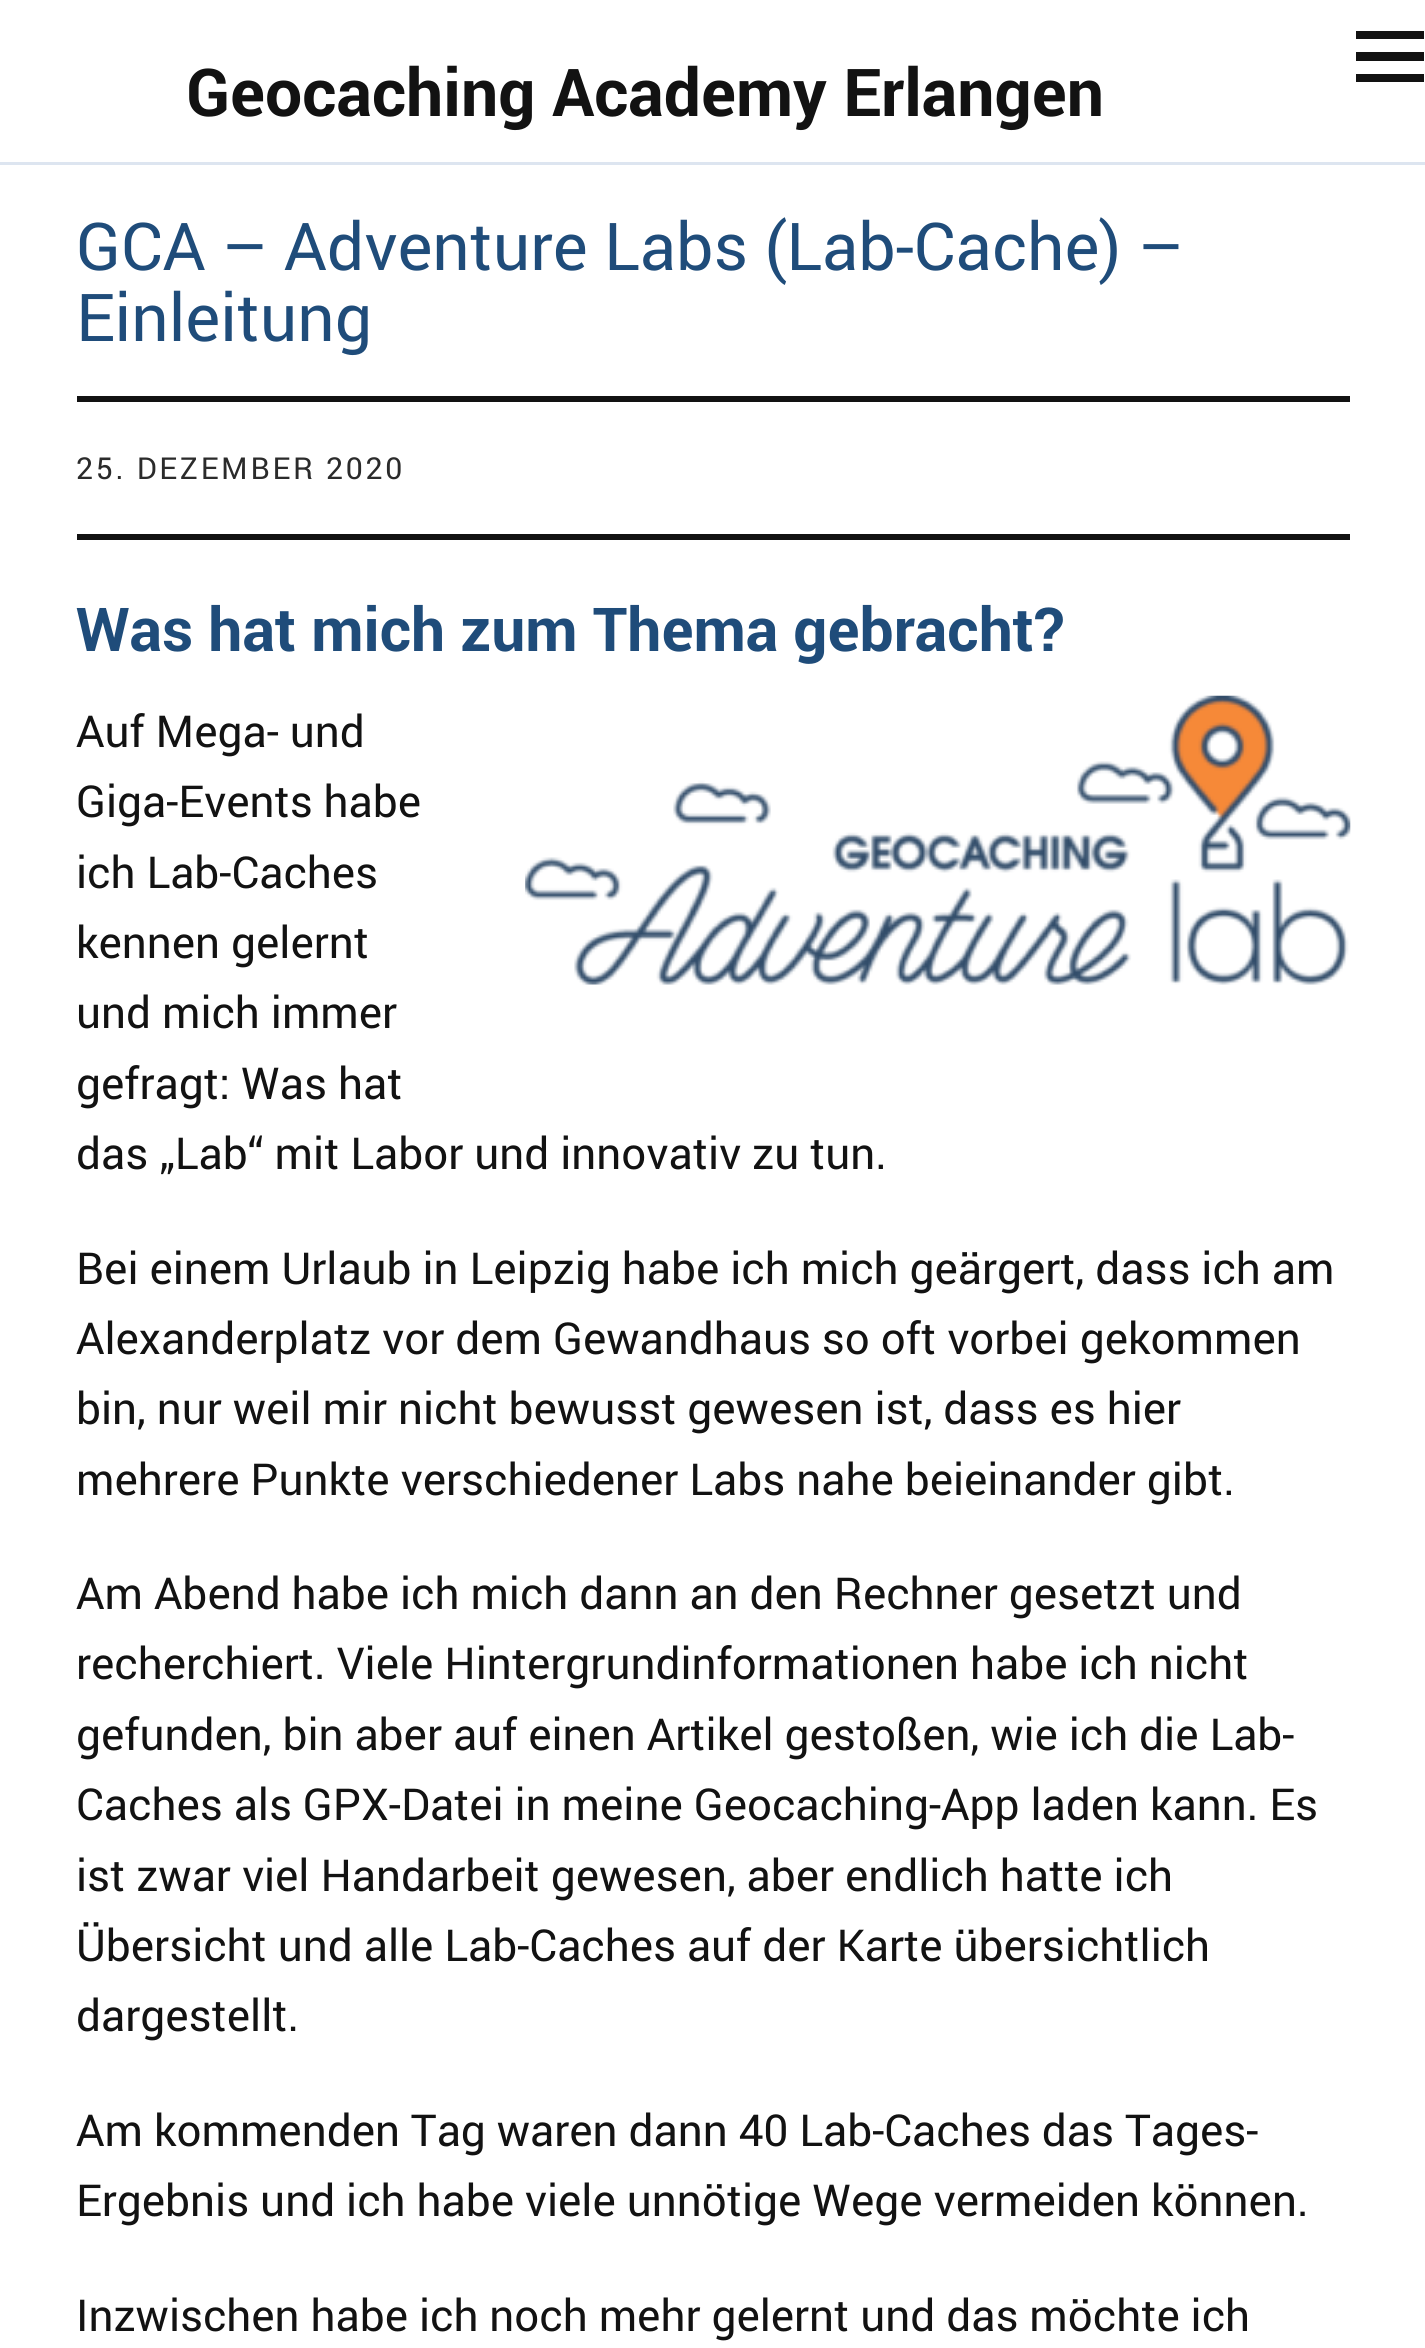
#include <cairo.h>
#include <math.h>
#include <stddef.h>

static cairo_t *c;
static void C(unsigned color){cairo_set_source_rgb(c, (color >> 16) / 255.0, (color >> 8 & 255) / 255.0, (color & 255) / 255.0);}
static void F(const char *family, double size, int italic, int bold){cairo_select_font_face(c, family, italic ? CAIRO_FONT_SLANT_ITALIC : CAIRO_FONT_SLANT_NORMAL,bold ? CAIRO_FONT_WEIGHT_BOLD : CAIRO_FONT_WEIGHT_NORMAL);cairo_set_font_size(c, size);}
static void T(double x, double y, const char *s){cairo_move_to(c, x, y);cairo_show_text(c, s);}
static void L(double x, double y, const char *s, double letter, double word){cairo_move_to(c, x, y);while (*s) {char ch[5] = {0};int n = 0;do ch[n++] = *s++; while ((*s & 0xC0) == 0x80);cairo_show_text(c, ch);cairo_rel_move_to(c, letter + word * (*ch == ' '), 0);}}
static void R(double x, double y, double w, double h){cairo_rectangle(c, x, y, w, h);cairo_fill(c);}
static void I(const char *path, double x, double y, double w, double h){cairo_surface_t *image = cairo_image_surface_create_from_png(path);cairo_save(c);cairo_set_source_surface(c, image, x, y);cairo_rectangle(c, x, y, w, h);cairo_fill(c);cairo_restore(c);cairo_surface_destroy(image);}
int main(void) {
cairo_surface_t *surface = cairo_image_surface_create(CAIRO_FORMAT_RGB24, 1425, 2348);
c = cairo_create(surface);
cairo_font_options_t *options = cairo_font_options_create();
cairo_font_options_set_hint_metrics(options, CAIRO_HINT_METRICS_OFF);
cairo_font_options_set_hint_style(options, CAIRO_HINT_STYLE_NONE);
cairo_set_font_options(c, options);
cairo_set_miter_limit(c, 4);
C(0xffffff);
cairo_paint(c);
C(0xdde5f0);
R(0,162,1425,3);
C(0x121212);
cairo_new_path(c);
cairo_move_to(c,1356,82);
cairo_line_to(c,1356,74);
cairo_line_to(c,1424,74);
cairo_line_to(c,1424,82);
cairo_close_path(c);
cairo_move_to(c,1356,31);
cairo_line_to(c,1424,31);
cairo_line_to(c,1424,39);
cairo_line_to(c,1356,39);
cairo_close_path(c);
cairo_move_to(c,1356,61);
cairo_line_to(c,1356,52);
cairo_line_to(c,1424,52);
cairo_line_to(c,1424,61);
cairo_close_path(c);
cairo_fill(c);
F("Roboto",66,0,1);
T(186,116,"Geocaching Academy Erlangen");
F("Roboto",66,0,0);
C(0x1f4c7a);
T(76,270,"GCA – Adventure Labs (Lab-Cache) –");
T(76,341,"Einleitung");
C(0x121212);
R(77,396,1273,6);
R(77,534,1273,6);
F("Roboto",30.25,0,0);
C(0x2b2b2b);
L(76,479,"25. DEZEMBER 2020",2.75,0);
F("Roboto",60.5,0,1);
C(0x1f4c7a);
T(76,651,"Was hat mich zum Thema gebracht?");
I("1.png",525,695,826,290);
F("Roboto",44,0,0);
C(0x121212);
T(76,747,"Auf Mega- und");
T(76,817,"Giga-Events habe");
T(76,888,"ich Lab-Caches");
T(76,958,"kennen gelernt");
T(76,1028,"und mich immer");
T(76,1099,"gefragt: Was hat");
T(76,1169,"das „Lab“ mit Labor und innovativ zu tun.");
T(76,1284,"Bei einem Urlaub in Leipzig habe ich mich geärgert, dass ich am");
T(76,1354,"Alexanderplatz vor dem Gewandhaus so oft vorbei gekommen");
T(76,1424,"bin, nur weil mir nicht bewusst gewesen ist, dass es hier");
T(76,1495,"mehrere Punkte verschiedener Labs nahe beieinander gibt.");
T(76,1609,"Am Abend habe ich mich dann an den Rechner gesetzt und");
T(76,1679,"recherchiert. Viele Hintergrundinformationen habe ich nicht");
T(76,1750,"gefunden, bin aber auf einen Artikel gestoßen, wie ich die Lab-");
T(76,1820,"Caches als GPX-Datei in meine Geocaching-App laden kann. Es");
T(76,1891,"ist zwar viel Handarbeit gewesen, aber endlich hatte ich");
T(76,1961,"Übersicht und alle Lab-Caches auf der Karte übersichtlich");
T(76,2031,"dargestellt.");
T(76,2146,"Am kommenden Tag waren dann 40 Lab-Caches das Tages-");
T(76,2216,"Ergebnis und ich habe viele unnötige Wege vermeiden können.");
T(76,2331,"Inzwischen habe ich noch mehr gelernt und das möchte ich");
cairo_surface_write_to_png(surface, "o.png");
cairo_font_options_destroy(options);
cairo_destroy(c);
cairo_surface_destroy(surface);
return 0;
}
